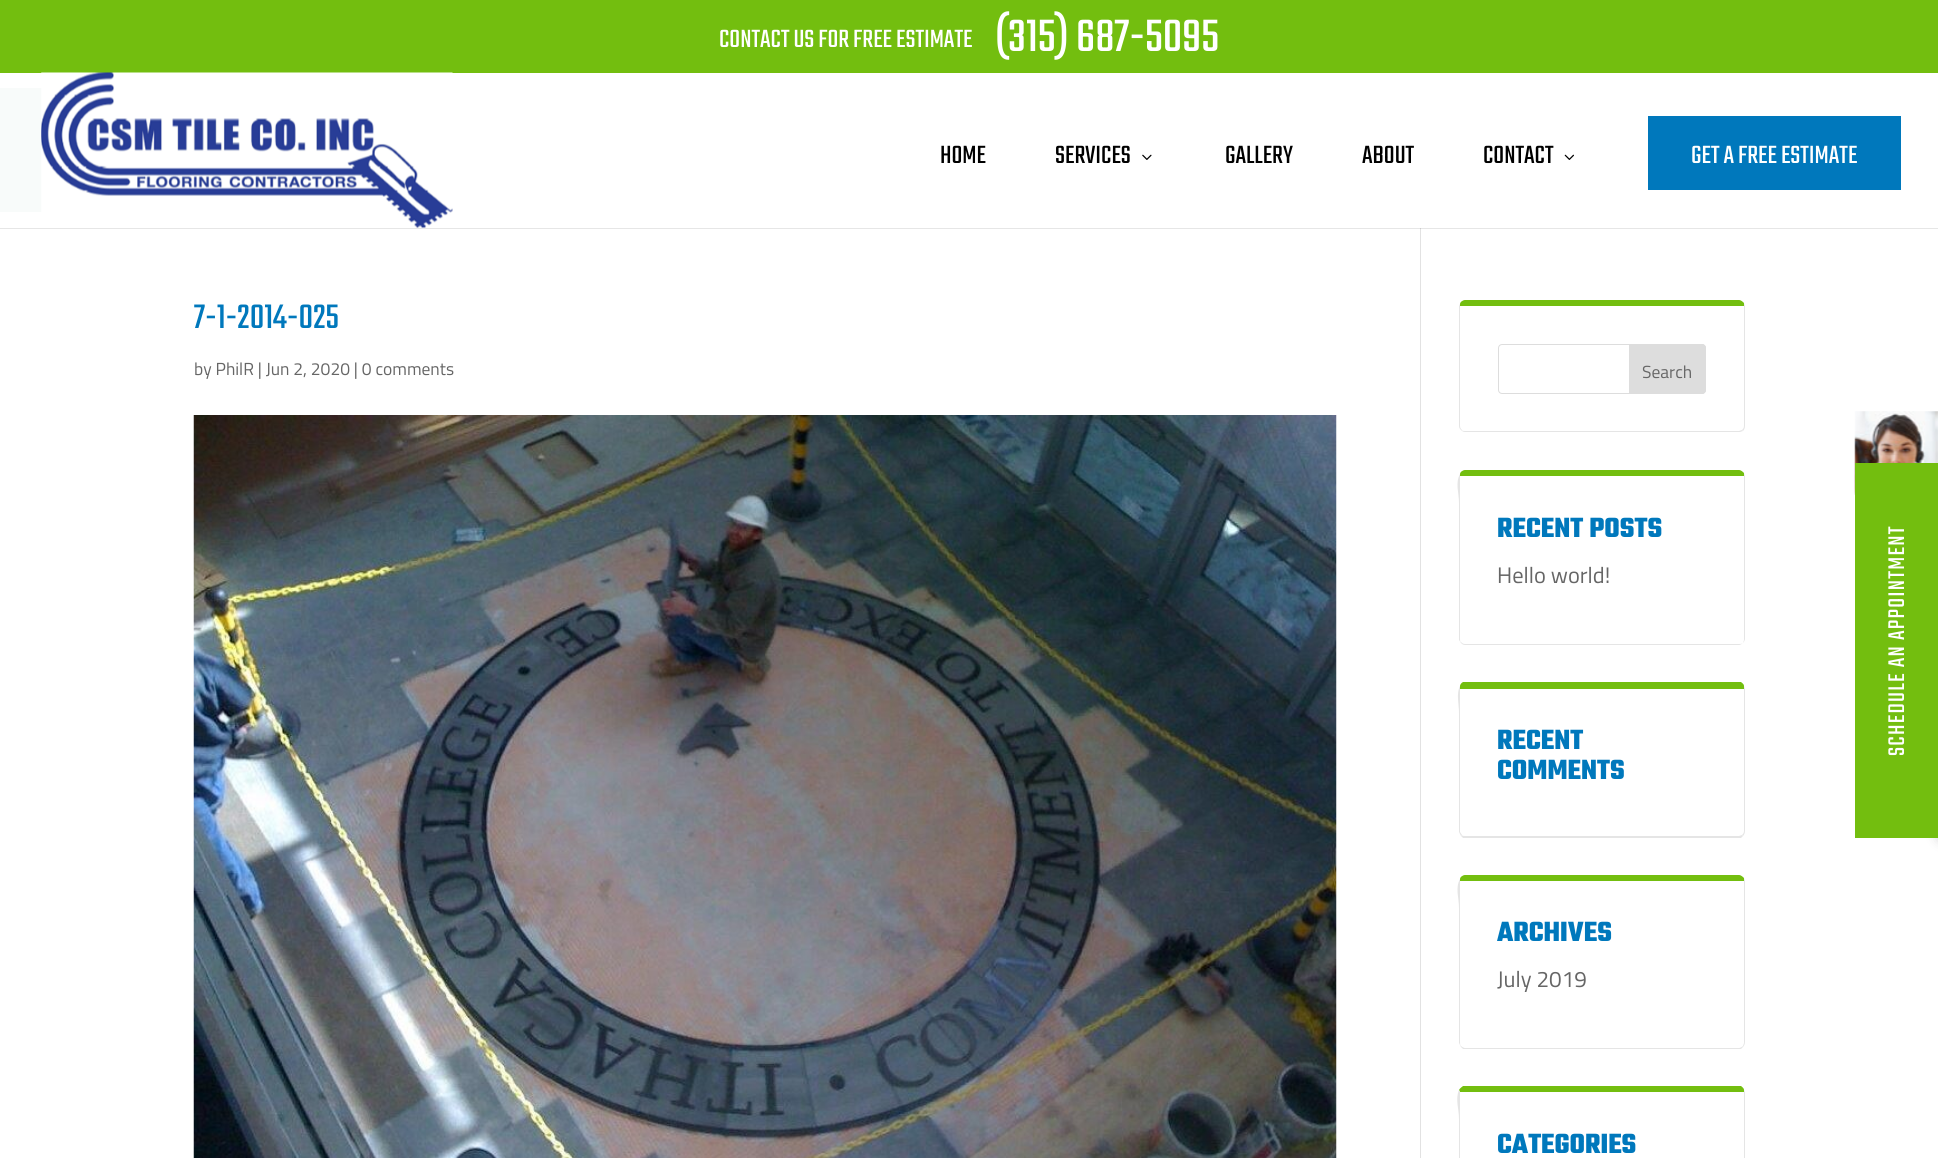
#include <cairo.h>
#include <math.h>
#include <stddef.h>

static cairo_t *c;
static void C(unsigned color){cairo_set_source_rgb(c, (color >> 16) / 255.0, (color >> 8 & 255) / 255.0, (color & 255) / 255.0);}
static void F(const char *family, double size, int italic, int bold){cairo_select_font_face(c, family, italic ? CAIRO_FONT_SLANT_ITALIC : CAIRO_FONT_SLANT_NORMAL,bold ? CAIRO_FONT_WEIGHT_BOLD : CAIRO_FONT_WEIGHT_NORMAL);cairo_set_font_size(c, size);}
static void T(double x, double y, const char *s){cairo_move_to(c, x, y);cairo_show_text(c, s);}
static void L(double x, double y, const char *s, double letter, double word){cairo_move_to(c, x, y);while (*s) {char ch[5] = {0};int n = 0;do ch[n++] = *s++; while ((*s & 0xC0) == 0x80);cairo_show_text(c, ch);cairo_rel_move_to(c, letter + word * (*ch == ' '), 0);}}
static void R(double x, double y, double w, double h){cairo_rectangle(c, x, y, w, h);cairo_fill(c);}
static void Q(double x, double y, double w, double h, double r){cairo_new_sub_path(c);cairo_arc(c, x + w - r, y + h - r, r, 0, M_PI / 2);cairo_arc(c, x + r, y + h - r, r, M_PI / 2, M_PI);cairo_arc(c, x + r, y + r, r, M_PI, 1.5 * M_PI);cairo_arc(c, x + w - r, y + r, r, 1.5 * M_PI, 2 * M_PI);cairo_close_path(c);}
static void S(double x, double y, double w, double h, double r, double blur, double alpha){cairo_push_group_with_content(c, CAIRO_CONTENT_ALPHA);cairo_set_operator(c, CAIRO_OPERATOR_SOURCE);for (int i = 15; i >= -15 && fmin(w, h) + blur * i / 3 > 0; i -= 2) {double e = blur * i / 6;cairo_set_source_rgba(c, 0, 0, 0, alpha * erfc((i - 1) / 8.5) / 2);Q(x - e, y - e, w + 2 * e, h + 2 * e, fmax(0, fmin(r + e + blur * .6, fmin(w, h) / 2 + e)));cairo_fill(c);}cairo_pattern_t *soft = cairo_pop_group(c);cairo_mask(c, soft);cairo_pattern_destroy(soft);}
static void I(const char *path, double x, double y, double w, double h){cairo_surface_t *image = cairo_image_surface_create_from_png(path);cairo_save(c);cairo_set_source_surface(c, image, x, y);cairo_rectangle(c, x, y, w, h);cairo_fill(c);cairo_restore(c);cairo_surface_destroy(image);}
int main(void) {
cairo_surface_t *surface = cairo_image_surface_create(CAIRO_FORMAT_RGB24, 1938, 1158);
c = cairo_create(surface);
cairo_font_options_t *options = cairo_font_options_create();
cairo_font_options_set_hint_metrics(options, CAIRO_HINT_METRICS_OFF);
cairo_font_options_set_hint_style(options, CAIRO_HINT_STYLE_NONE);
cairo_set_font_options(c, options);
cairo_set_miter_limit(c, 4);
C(0xffffff);
cairo_paint(c);
C(0x73be0f);
R(0,0,1938,73);
F("Teko",27.5,0,0);
C(0xffffff);
T(719,47,"CONTACT US FOR FREE ESTIMATE");
F("Teko",50,0,0);
T(995,51,"(315) 687-5095");
C(0xe2e2e2);
R(1420,228,1,930);
cairo_set_source_rgba(c,0,0,0,0.1);
cairo_new_path(c);
cairo_move_to(c,0,228);
cairo_line_to(c,0,229);
cairo_line_to(c,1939,229);
cairo_line_to(c,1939,74);
cairo_line_to(c,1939,228);
cairo_close_path(c);
cairo_fill(c);
C(0xf8fbfa);
cairo_new_path(c);
cairo_move_to(c,-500,88);
cairo_line_to(c,230,88);
cairo_curve_to(c,226,100,220,112,214,124);
cairo_line_to(c,208,137);
cairo_line_to(c,205,140);
cairo_line_to(c,199,157);
cairo_line_to(c,183,189);
cairo_line_to(c,180,192);
cairo_line_to(c,177,201);
cairo_line_to(c,171,212);
cairo_line_to(c,-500,212);
cairo_close_path(c);
cairo_fill(c);
I("1.png",41,72,412,156);
F("Teko",27.5,0,0);
C(0x000000);
T(940,163,"HOME");
T(1055,163,"SERVICES");
I("2.png",1142,154,10,6);
T(1225,163,"GALLERY");
T(1362,163,"ABOUT");
T(1483,163,"CONTACT");
I("3.png",1564,154,10,6);
C(0x0078bc);
R(1648,116,253,74);
C(0xffffff);
T(1691,163,"GET A FREE ESTIMATE");
F("Teko",37.5,0,0);
C(0x0078bc);
T(194,328,"7-1-2014-025");
F("Titillium Web",17.5,0,0);
C(0x666666);
T(194,375,"by PhilR | Jun 2, 2020 | 0 comments");
I("4.png",193,415,1144,743);
C(0x73be0f);
cairo_new_path(c);
cairo_move_to(c,1465,300);
cairo_curve_to(c,1463,300,1460,302,1460,304);
cairo_line_to(c,1460,306);
cairo_line_to(c,1744,306);
cairo_line_to(c,1744,303);
cairo_curve_to(c,1743,302,1741,300,1739,300);
cairo_close_path(c);
cairo_fill(c);
C(0xe5e5e5);
cairo_new_path(c);
cairo_move_to(c,1745,426);
cairo_line_to(c,1745,306);
cairo_line_to(c,1744,303);
cairo_line_to(c,1744,306);
cairo_line_to(c,1744,426);
cairo_curve_to(c,1744,428,1743,429,1742,430);
cairo_line_to(c,1743,431);
cairo_curve_to(c,1744,430,1745,428,1745,426);
cairo_close_path(c);
cairo_fill(c);
cairo_new_path(c);
cairo_move_to(c,1743,431);
cairo_line_to(c,1740,432);
cairo_line_to(c,1465,432);
cairo_curve_to(c,1463,432,1462,431,1461,430);
cairo_line_to(c,1462,430);
cairo_curve_to(c,1462,431,1464,431,1465,431);
cairo_line_to(c,1739,431);
cairo_line_to(c,1742,430);
cairo_close_path(c);
cairo_fill(c);
cairo_new_path(c);
cairo_move_to(c,1460,304);
cairo_line_to(c,1459,306);
cairo_line_to(c,1459,426);
cairo_curve_to(c,1459,428,1460,429,1461,430);
cairo_line_to(c,1462,430);
cairo_curve_to(c,1461,429,1460,428,1460,426);
cairo_line_to(c,1460,306);
cairo_close_path(c);
cairo_fill(c);
Q(1498.5,344.5,207,49,3.5);
C(0xdddddd);
cairo_set_line_width(c,1);
cairo_stroke(c);
cairo_new_path(c);
cairo_move_to(c,1629.5,344.5);
cairo_line_to(c,1702,344.5);
cairo_curve_to(c,1704,344.5,1705.5,346,1705.5,348);
cairo_line_to(c,1705.5,390);
cairo_curve_to(c,1705.5,392,1704,393.5,1702,393.5);
cairo_line_to(c,1629.5,393.5);
cairo_close_path(c);
cairo_fill_preserve(c);
cairo_stroke(c);
C(0x666666);
T(1642,378,"Search");
C(0x73be0f);
cairo_new_path(c);
cairo_move_to(c,1465,470);
cairo_curve_to(c,1463,470,1460,472,1460,474);
cairo_line_to(c,1460,476);
cairo_line_to(c,1744,476);
cairo_line_to(c,1744,473);
cairo_curve_to(c,1743,472,1741,470,1739,470);
cairo_close_path(c);
cairo_fill(c);
C(0xe5e5e5);
cairo_new_path(c);
cairo_move_to(c,1745,639);
cairo_line_to(c,1745,476);
cairo_line_to(c,1744,473);
cairo_line_to(c,1744,476);
cairo_line_to(c,1744,640);
cairo_line_to(c,1743,643);
cairo_curve_to(c,1744,642,1745,640,1745,639);
cairo_close_path(c);
cairo_fill(c);
cairo_new_path(c);
cairo_move_to(c,1465,645);
cairo_line_to(c,1739,645);
cairo_curve_to(c,1740,645,1742,644,1743,643);
cairo_curve_to(c,1742,644,1740,644,1739,644);
cairo_line_to(c,1465,644);
cairo_curve_to(c,1463,644,1462,643,1461,642);
cairo_line_to(c,1461,643);
cairo_curve_to(c,1462,644,1463,645,1465,645);
cairo_close_path(c);
cairo_fill(c);
cairo_new_path(c);
cairo_move_to(c,1460,474);
cairo_curve_to(c,1455,483,1459,493,1459,503);
cairo_line_to(c,1459,640);
cairo_line_to(c,1461,643);
cairo_line_to(c,1461,642);
cairo_curve_to(c,1460,642,1460,640,1460,639);
cairo_line_to(c,1460,476);
cairo_close_path(c);
cairo_fill(c);
F("Teko",30,0,1);
C(0x0078bc);
T(1497,537,"RECENT POSTS");
F("Titillium Web",22.5,0,0);
C(0x666666);
T(1497,583,"Hello world!");
C(0x73be0f);
cairo_new_path(c);
cairo_move_to(c,1460,686);
cairo_curve_to(c,1460,685,1461,683,1463,682);
cairo_line_to(c,1741,682);
cairo_curve_to(c,1742,683,1744,684,1744,686);
cairo_line_to(c,1744,689);
cairo_line_to(c,1460,689);
cairo_close_path(c);
cairo_fill(c);
C(0xe5e5e5);
cairo_new_path(c);
cairo_move_to(c,1745,831);
cairo_line_to(c,1745,689);
cairo_line_to(c,1744,686);
cairo_line_to(c,1744,689);
cairo_line_to(c,1744,831);
cairo_curve_to(c,1744,833,1743,834,1742,835);
cairo_line_to(c,1743,836);
cairo_curve_to(c,1744,835,1745,833,1745,831);
cairo_close_path(c);
cairo_fill(c);
cairo_new_path(c);
cairo_move_to(c,1463,838);
cairo_line_to(c,1461,836);
cairo_line_to(c,1462,835);
cairo_curve_to(c,1462,836,1464,836,1465,836);
cairo_line_to(c,1739,836);
cairo_line_to(c,1742,835);
cairo_line_to(c,1743,836);
cairo_line_to(c,1741,838);
cairo_close_path(c);
cairo_fill(c);
cairo_new_path(c);
cairo_move_to(c,1461,836);
cairo_line_to(c,1459,832);
cairo_line_to(c,1459,713);
cairo_curve_to(c,1459,704,1456,694,1460,686);
cairo_line_to(c,1460,689);
cairo_line_to(c,1460,832);
cairo_line_to(c,1462,835);
cairo_close_path(c);
cairo_fill(c);
F("Teko",30,0,1);
C(0x0078bc);
T(1497,749,"RECENT");
T(1497,779,"COMMENTS");
C(0x73be0f);
cairo_new_path(c);
cairo_move_to(c,1465,875);
cairo_curve_to(c,1463,875,1460,877,1460,879);
cairo_line_to(c,1460,881);
cairo_line_to(c,1744,881);
cairo_line_to(c,1744,878);
cairo_curve_to(c,1743,877,1741,875,1739,875);
cairo_close_path(c);
cairo_fill(c);
C(0xe5e5e5);
cairo_new_path(c);
cairo_move_to(c,1745,1042);
cairo_line_to(c,1745,881);
cairo_line_to(c,1744,878);
cairo_line_to(c,1744,881);
cairo_line_to(c,1744,1043);
cairo_line_to(c,1743,1046);
cairo_line_to(c,1743,1047);
cairo_curve_to(c,1744,1046,1745,1044,1745,1042);
cairo_close_path(c);
cairo_fill(c);
cairo_new_path(c);
cairo_move_to(c,1463,1049);
cairo_line_to(c,1461,1047);
cairo_line_to(c,1461,1046);
cairo_curve_to(c,1462,1047,1464,1048,1465,1048);
cairo_line_to(c,1739,1048);
cairo_curve_to(c,1740,1048,1742,1047,1743,1046);
cairo_line_to(c,1743,1047);
cairo_line_to(c,1741,1049);
cairo_close_path(c);
cairo_fill(c);
cairo_new_path(c);
cairo_move_to(c,1460,879);
cairo_curve_to(c,1455,888,1459,898,1459,908);
cairo_line_to(c,1459,1043);
cairo_line_to(c,1461,1047);
cairo_line_to(c,1461,1046);
cairo_curve_to(c,1460,1045,1460,1044,1460,1042);
cairo_line_to(c,1460,881);
cairo_close_path(c);
cairo_fill(c);
C(0x0078bc);
T(1497,941,"ARCHIVES");
F("Titillium Web",22.5,0,0);
C(0x666666);
T(1497,987,"July 2019");
C(0x73be0f);
cairo_new_path(c);
cairo_move_to(c,1459,1090);
cairo_curve_to(c,1460,1088,1462,1087,1463,1086);
cairo_line_to(c,1741,1086);
cairo_curve_to(c,1742,1087,1744,1088,1744,1090);
cairo_line_to(c,1744,1092);
cairo_line_to(c,1460,1092);
cairo_close_path(c);
cairo_fill(c);
C(0xe5e5e5);
cairo_new_path(c);
cairo_move_to(c,1745,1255);
cairo_line_to(c,1745,1092);
cairo_line_to(c,1744,1090);
cairo_line_to(c,1744,1092);
cairo_line_to(c,1744,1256);
cairo_line_to(c,1742,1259);
cairo_line_to(c,1743,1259);
cairo_curve_to(c,1744,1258,1745,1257,1745,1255);
cairo_close_path(c);
cairo_fill(c);
cairo_new_path(c);
cairo_move_to(c,1461,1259);
cairo_line_to(c,1459,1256);
cairo_line_to(c,1459,1119);
cairo_curve_to(c,1459,1109,1455,1099,1459,1090);
cairo_line_to(c,1460,1092);
cairo_line_to(c,1460,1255);
cairo_curve_to(c,1460,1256,1460,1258,1461,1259);
cairo_close_path(c);
cairo_fill(c);
F("Teko",30,0,1);
C(0x0078bc);
T(1497,1153,"CATEGORIES");
C(0xc7c7c7);
S(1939,464,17,375,0,6,1);
I("5.png",1854,411,84,84);
C(0x73be0f);
R(1855,463,83,375);
F("Teko",25,0,0);
C(0xffffff);
cairo_save(c);
cairo_translate(c,1904,756);
cairo_rotate(c,-90 * M_PI / 180);
L(0,0,"SCHEDULE AN APPOINTMENT",1.25,0);
cairo_restore(c);
cairo_surface_write_to_png(surface, "o.png");
cairo_font_options_destroy(options);
cairo_destroy(c);
cairo_surface_destroy(surface);
return 0;
}
